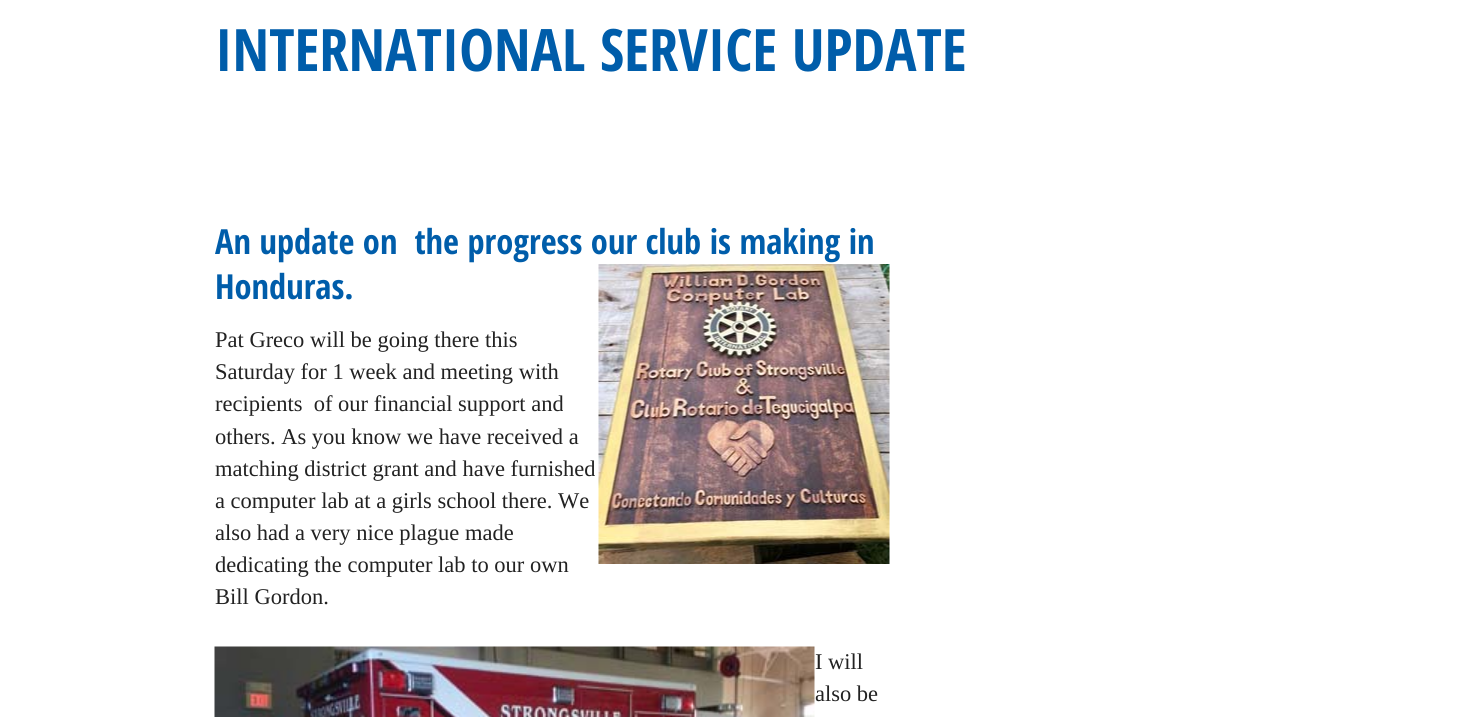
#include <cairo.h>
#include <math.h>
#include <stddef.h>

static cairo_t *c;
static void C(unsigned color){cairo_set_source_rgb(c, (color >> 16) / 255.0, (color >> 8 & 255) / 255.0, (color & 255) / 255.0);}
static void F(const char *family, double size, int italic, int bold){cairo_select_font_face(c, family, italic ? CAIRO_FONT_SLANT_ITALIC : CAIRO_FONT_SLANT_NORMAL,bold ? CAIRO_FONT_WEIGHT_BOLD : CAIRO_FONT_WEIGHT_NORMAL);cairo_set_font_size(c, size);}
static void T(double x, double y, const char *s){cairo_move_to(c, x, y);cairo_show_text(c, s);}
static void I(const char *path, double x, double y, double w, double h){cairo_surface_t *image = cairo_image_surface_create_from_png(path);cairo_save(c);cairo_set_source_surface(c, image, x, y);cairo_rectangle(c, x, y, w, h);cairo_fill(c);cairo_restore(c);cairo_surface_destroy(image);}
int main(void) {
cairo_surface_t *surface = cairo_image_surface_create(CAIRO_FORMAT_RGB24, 1464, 717);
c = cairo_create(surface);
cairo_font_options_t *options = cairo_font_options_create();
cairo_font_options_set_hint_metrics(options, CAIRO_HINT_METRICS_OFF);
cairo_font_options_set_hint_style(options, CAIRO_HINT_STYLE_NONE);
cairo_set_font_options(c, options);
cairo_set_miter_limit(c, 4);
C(0xffffff);
cairo_paint(c);
F("Open Sans Condensed",58.5,0,1);
C(0x005daa);
T(215,71,"INTERNATIONAL SERVICE UPDATE");
F("Open Sans Condensed",34.5,0,1);
T(215,254,"An update on  the progress our club is making in");
T(215,299,"Honduras.");
I("1.png",598,264,292,300);
F("Liberation Serif",22.5,0,0);
C(0x222222);
T(215,347,"Pat Greco will be going there this");
T(215,379,"Saturday for 1 week and meeting with");
T(215,411,"recipients  of our financial support and");
T(215,444,"others. As you know we have received a");
T(215,476,"matching district grant and have furnished");
T(215,508,"a computer lab at a girls school there. We");
T(215,540,"also had a very nice plague made");
T(215,572,"dedicating the computer lab to our own");
T(215,604,"Bill Gordon.");
I("2.png",214,646,601,71);
T(815,669,"I will");
T(815,701,"also be");
cairo_surface_write_to_png(surface, "o.png");
cairo_font_options_destroy(options);
cairo_destroy(c);
cairo_surface_destroy(surface);
return 0;
}
